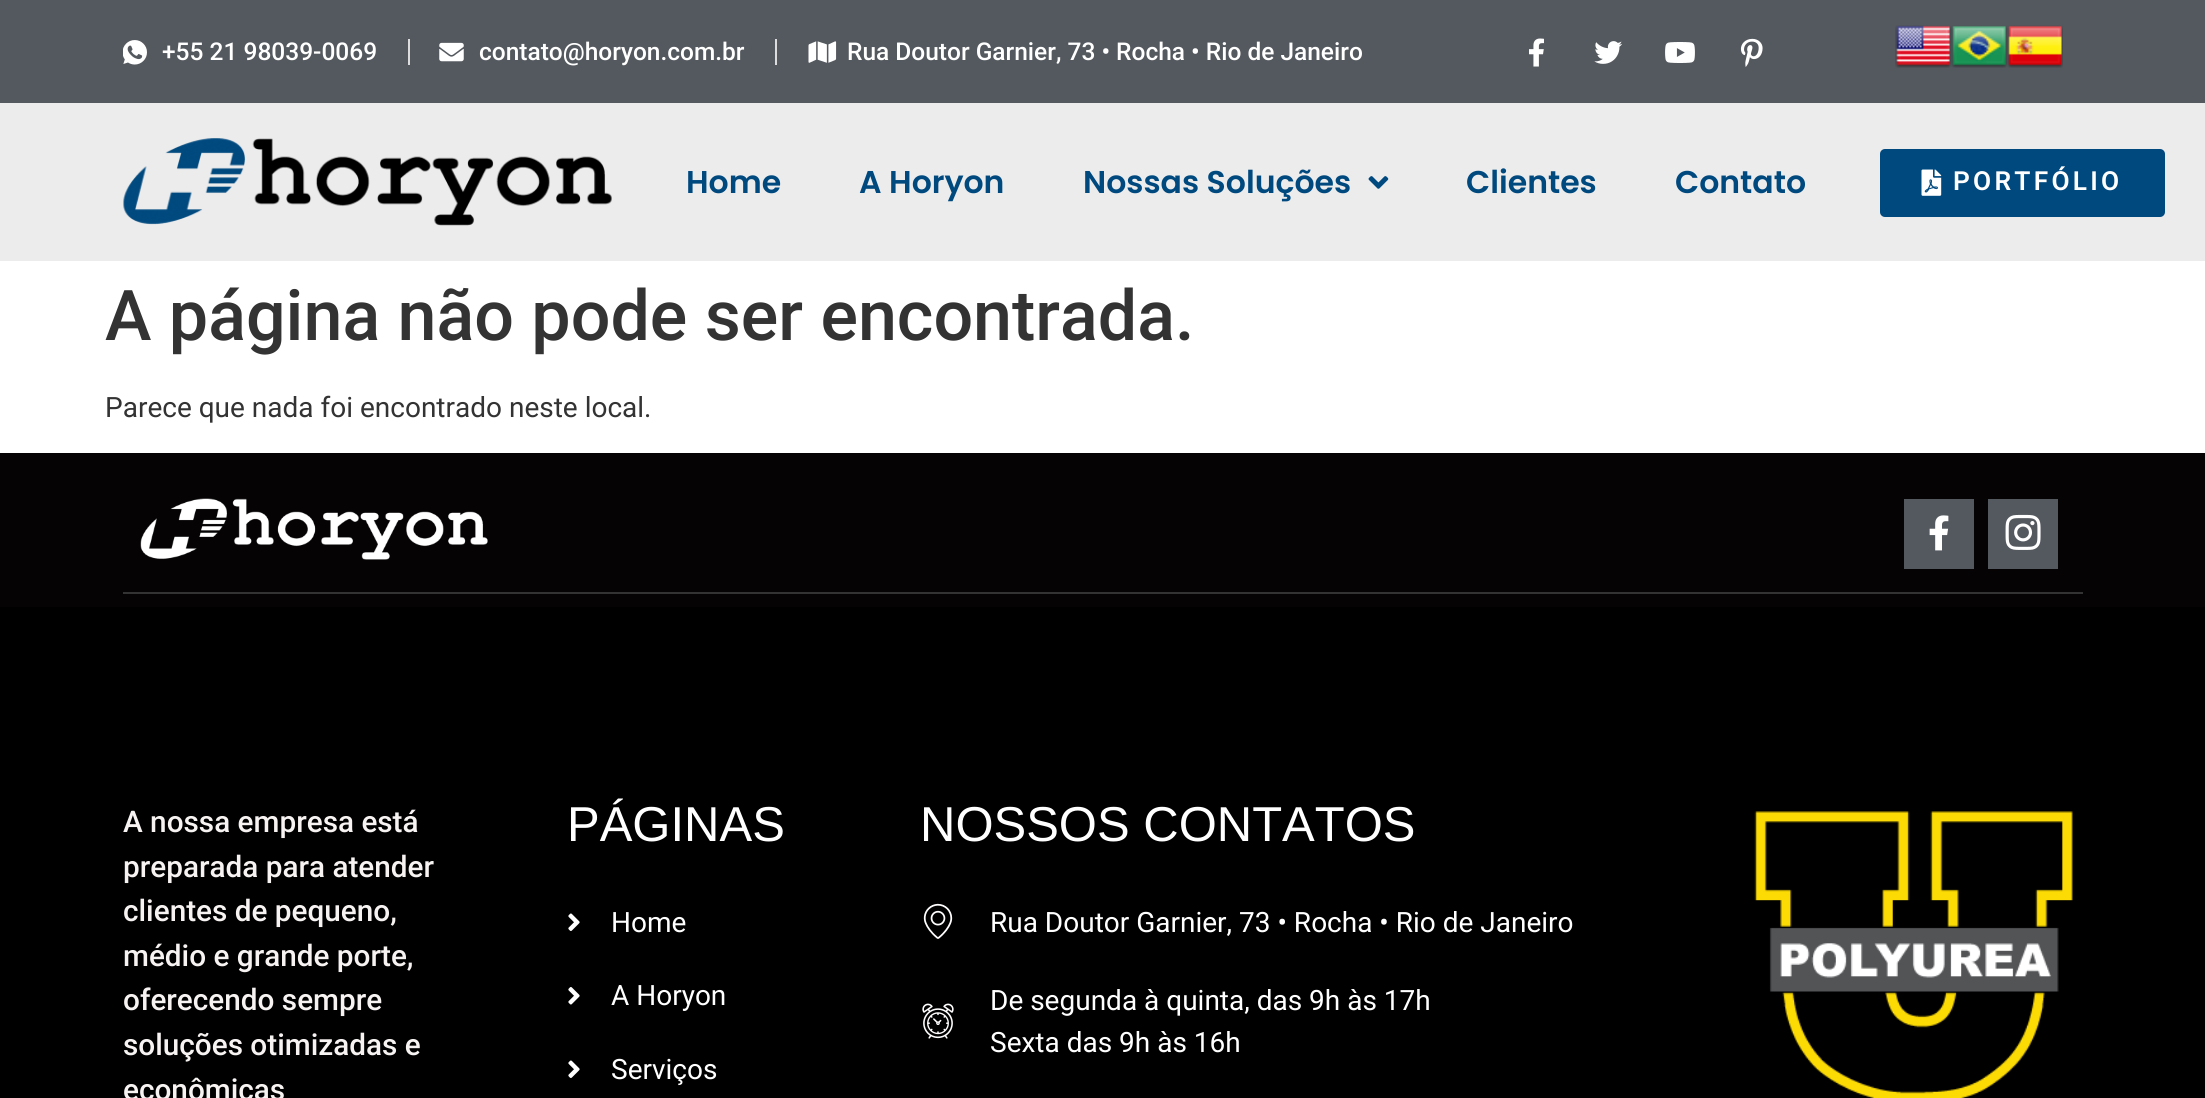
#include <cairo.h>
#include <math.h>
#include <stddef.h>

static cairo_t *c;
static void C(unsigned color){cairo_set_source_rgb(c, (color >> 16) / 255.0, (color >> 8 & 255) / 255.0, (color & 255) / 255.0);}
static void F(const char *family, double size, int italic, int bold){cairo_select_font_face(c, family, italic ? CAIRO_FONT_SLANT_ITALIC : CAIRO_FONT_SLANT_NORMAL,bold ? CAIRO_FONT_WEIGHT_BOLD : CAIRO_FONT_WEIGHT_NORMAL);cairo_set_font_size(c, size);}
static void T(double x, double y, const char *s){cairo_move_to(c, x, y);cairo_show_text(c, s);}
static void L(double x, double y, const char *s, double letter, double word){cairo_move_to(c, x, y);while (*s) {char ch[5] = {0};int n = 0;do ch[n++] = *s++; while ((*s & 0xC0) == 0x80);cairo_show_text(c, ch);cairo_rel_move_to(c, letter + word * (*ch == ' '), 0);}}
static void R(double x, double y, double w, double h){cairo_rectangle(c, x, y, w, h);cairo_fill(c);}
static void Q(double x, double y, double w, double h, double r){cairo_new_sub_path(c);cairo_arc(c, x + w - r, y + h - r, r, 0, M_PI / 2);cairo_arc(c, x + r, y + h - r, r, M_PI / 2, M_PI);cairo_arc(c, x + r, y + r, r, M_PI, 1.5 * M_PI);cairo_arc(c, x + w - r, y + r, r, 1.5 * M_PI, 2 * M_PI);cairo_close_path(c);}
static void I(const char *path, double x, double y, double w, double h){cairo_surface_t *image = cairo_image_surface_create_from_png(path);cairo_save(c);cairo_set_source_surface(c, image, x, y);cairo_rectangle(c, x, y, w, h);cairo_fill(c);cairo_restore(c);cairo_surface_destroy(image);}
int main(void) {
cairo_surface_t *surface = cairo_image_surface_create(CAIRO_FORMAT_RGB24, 2205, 1098);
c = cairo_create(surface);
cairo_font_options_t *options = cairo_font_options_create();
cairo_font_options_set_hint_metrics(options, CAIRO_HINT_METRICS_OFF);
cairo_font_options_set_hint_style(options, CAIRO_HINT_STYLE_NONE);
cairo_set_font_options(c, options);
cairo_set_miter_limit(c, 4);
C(0xffffff);
cairo_paint(c);
C(0x54595f);
R(0,0,2205,103);
I("1.png",123,40,24,25);
F("Roboto Medium",24.5,0,0);
C(0xffffff);
T(162,60,"+55 21 98039-0069");
C(0xdddddd);
R(408,39,2,26);
I("2.png",439,42,25,20);
C(0xffffff);
T(479,60,"contato@horyon.com.br");
C(0xdddddd);
R(775,39,2,26);
I("3.png",808,41,29,22);
C(0xffffff);
T(847,60,"Rua Doutor Garnier, 73 • Rocha • Rio de Janeiro");
I("4.png",1529,38,15,29);
I("5.png",1594,41,29,23);
I("6.png",1665,42,30,21);
I("7.png",1740,38,23,29);
I("8.png",1895,25,56,43);
I("9.png",1951,25,56,43);
I("10.png",2007,25,56,43);
C(0xececec);
R(0,103,2205,158);
I("11.png",123,138,489,88);
F("Poppins SemiBold",31.5,0,0);
C(0x00497f);
T(686,193,"Home");
T(859,193,"A Horyon");
T(1083,193,"Nossas Soluções");
I("12.png",1368,176,21,13);
T(1466,193,"Clientes");
T(1675,193,"Contato");
Q(1880,149,285,68,5);
cairo_fill(c);
I("13.png",1921,169,21,27);
F("Roboto SemiBold",26.25,0,0);
C(0xffffff);
L(1953,190,"PORTFÓLIO",3.25,0);
F("Roboto Medium",70,0,0);
C(0x333333);
T(105,340,"A página não pode ser encontrada.");
F("Roboto",28,0,0);
T(105,417,"Parece que nada foi encontrado neste local.");
C(0x050303);
R(0,453,2205,154);
C(0x333333);
R(123,592,1960,2);
I("14.png",140,498,348,62);
C(0x54595f);
R(1904,499,70,70);
I("15.png",1929,515,20,36);
R(1988,499,70,70);
I("16.png",2005,514,36,36);
C(0x000000);
R(0,607,2205,491);
F("Roboto Medium",29.75,0,0);
C(0xf8f3f3);
T(123,832,"A nossa empresa está");
T(123,877,"preparada para atender");
T(123,921,"clientes de pequeno,");
T(123,966,"médio e grande porte,");
T(123,1010,"oferecendo sempre");
T(123,1055,"soluções otimizadas e");
T(123,1100,"econômicas");
F("Liberation Sans",49,0,0);
C(0xffffff);
T(567,841,"PÁGINAS");
I("17.png",568,913,12,18);
F("Roboto",28,0,0);
T(611,932,"Home");
I("18.png",568,987,12,18);
T(611,1005,"A Horyon");
I("17.png",568,1060,12,18);
T(611,1079,"Serviços");
F("Liberation Sans",49,0,0);
T(920,841,"NOSSOS CONTATOS");
I("19.png",923,903,30,36);
F("Roboto",28,0,0);
T(990,932,"Rua Doutor Garnier, 73 • Rocha • Rio de Janeiro");
I("20.png",922,1003,32,36);
T(990,1010,"De segunda à quinta, das 9h às 17h");
T(990,1052,"Sexta das 9h às 16h");
I("21.png",1754,811,319,287);
cairo_surface_write_to_png(surface, "o.png");
cairo_font_options_destroy(options);
cairo_destroy(c);
cairo_surface_destroy(surface);
return 0;
}
